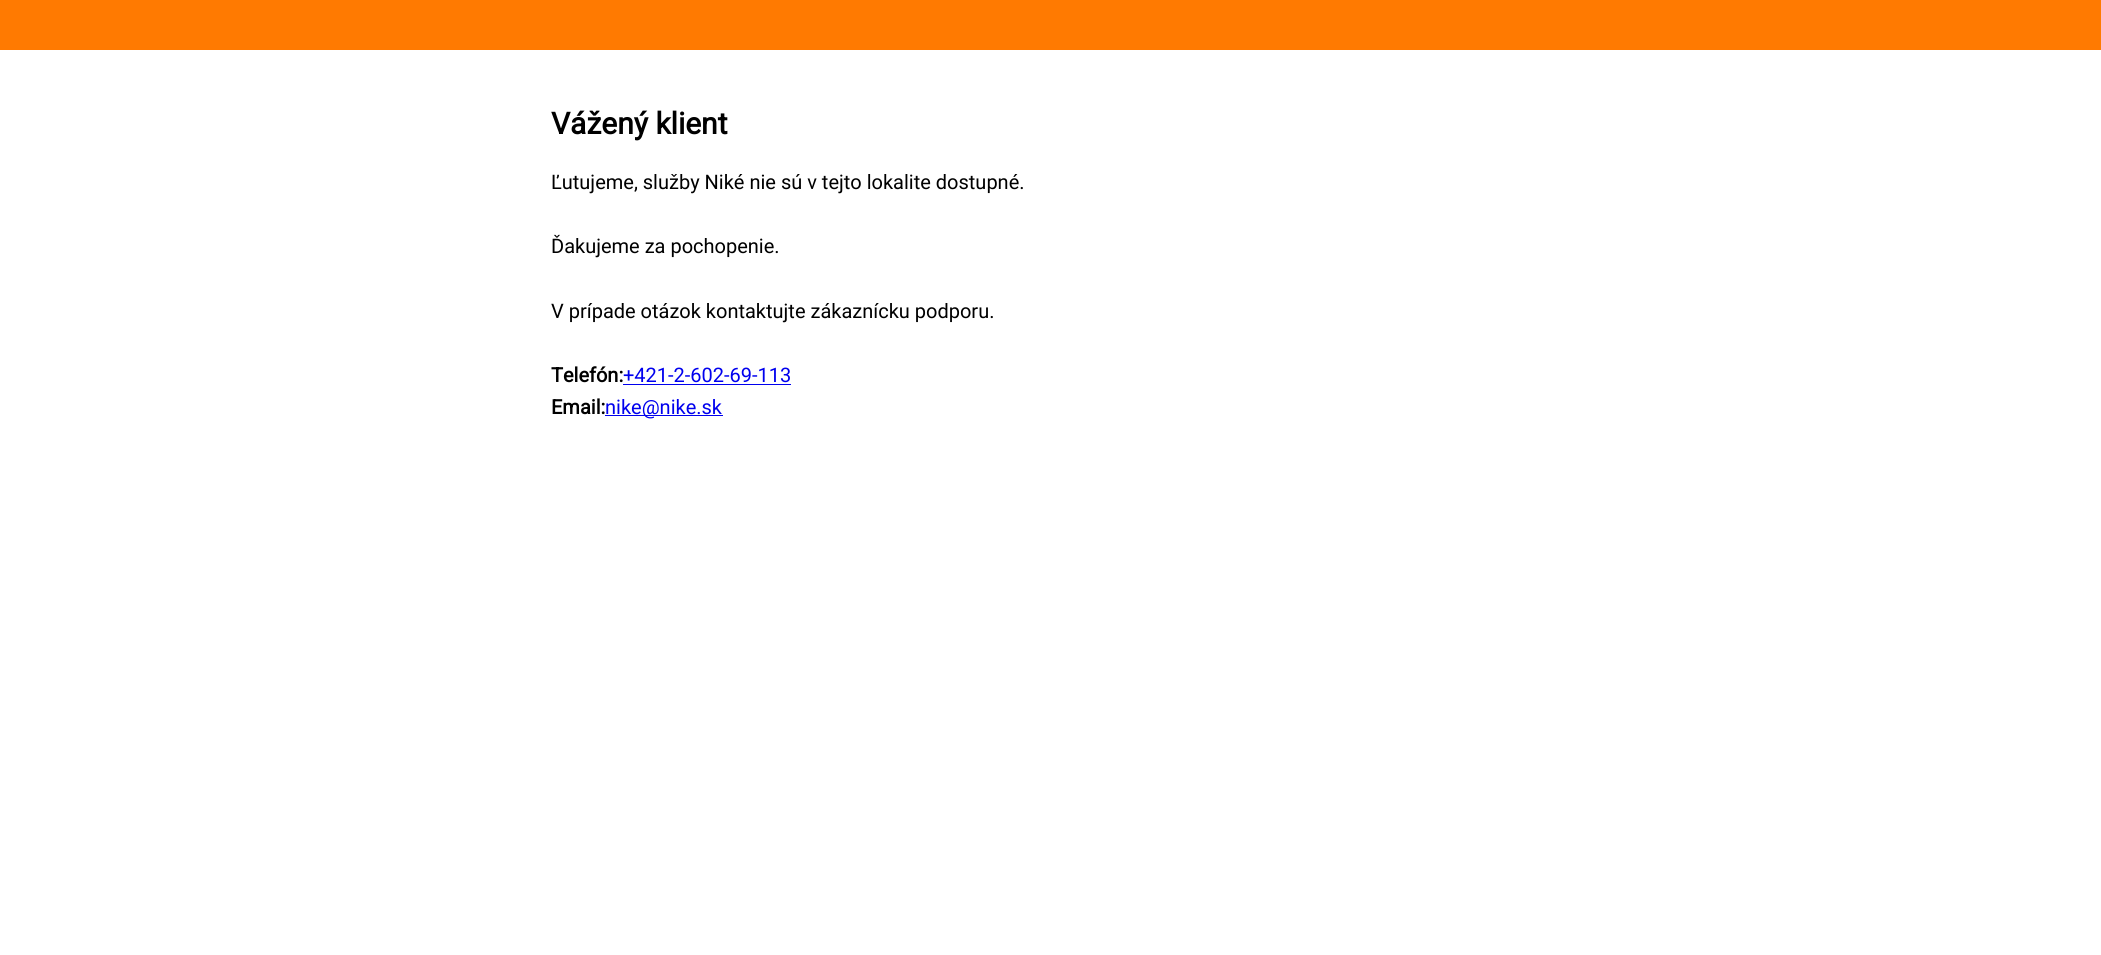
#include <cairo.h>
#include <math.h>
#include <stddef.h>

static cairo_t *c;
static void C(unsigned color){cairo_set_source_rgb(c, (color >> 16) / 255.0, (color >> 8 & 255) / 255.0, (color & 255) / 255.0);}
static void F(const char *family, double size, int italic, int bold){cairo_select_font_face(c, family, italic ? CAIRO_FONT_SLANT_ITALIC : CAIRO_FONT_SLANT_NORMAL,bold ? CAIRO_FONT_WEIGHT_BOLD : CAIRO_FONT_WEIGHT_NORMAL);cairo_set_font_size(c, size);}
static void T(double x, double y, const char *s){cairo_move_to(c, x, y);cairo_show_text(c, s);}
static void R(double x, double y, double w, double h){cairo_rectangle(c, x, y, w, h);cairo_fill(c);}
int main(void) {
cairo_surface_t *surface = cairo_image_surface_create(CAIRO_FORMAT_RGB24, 2101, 955);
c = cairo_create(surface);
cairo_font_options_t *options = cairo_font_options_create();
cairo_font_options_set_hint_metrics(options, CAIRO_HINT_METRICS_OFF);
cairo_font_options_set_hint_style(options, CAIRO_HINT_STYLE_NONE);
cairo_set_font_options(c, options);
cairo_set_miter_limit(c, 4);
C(0xffffff);
cairo_paint(c);
C(0xff7a01);
R(0,0,2101,50);
F("Roboto",30,0,1);
C(0x000000);
T(551,134,"Vážený klient");
F("Roboto",20,0,0);
T(551,189,"Ľutujeme, služby Niké nie sú v tejto lokalite dostupné.");
T(551,253,"Ďakujeme za pochopenie.");
T(551,318,"V prípade otázok kontaktujte zákaznícku podporu.");
F("Roboto",20,0,1);
T(551,382,"Telefón:");
F("Roboto",20,0,0);
C(0x0000ee);
T(623,382,"+421-2-602-69-113");
R(623,384,168,1);
F("Roboto",20,0,1);
C(0x000000);
T(551,414,"Email:");
C(0x0000ee);
R(605,415,118,1);
F("Roboto",20,0,0);
T(605,414,"nike@nike.sk");
cairo_surface_write_to_png(surface, "o.png");
cairo_font_options_destroy(options);
cairo_destroy(c);
cairo_surface_destroy(surface);
return 0;
}
